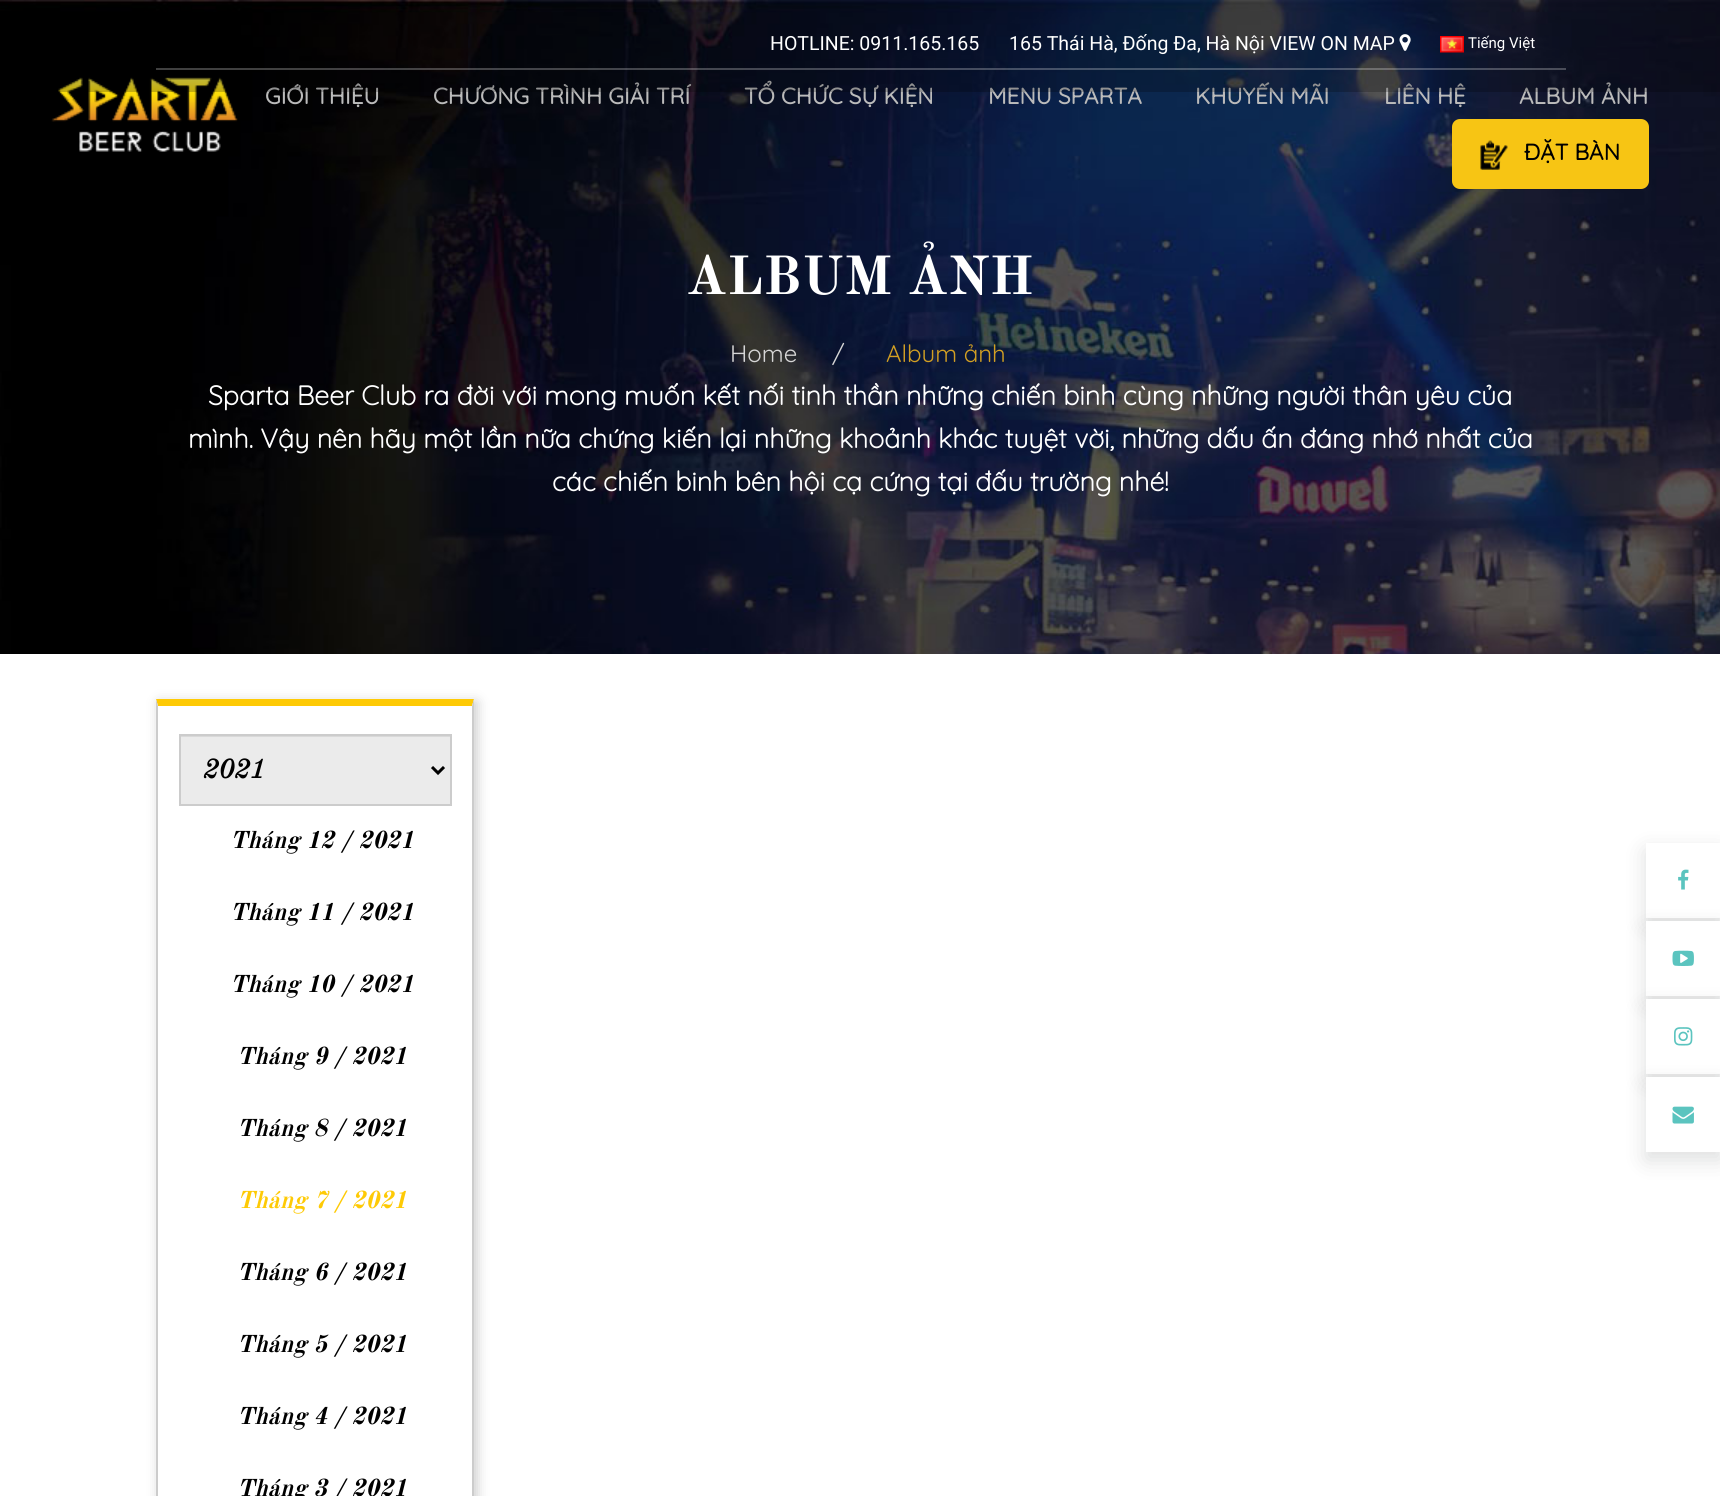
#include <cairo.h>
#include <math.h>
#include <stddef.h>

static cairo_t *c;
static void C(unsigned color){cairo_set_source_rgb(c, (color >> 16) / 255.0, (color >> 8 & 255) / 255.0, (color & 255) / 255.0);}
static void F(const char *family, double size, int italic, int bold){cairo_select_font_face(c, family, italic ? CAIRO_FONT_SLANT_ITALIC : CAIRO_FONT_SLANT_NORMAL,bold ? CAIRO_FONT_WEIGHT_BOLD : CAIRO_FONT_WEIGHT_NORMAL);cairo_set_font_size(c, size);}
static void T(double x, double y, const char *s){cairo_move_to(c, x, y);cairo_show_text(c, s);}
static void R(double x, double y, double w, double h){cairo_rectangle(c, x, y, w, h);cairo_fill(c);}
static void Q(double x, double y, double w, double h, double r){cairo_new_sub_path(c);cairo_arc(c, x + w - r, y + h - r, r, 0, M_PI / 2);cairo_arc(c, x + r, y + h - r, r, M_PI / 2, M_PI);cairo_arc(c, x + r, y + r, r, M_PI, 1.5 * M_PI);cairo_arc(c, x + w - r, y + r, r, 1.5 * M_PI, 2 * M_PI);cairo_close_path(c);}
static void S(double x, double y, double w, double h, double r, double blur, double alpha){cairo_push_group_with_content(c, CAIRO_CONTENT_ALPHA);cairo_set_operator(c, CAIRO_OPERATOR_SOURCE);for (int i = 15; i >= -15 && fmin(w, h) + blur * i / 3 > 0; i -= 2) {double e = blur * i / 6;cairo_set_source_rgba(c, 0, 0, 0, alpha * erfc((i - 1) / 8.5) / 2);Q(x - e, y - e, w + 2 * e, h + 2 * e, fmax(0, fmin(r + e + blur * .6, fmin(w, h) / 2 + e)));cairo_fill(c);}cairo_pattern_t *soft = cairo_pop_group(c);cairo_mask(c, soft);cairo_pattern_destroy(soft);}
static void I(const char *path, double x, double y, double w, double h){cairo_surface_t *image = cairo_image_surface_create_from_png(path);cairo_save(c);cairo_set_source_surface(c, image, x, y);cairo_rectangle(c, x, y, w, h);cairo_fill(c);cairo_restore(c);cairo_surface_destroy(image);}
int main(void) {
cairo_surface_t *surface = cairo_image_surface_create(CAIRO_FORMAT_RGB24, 1720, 1496);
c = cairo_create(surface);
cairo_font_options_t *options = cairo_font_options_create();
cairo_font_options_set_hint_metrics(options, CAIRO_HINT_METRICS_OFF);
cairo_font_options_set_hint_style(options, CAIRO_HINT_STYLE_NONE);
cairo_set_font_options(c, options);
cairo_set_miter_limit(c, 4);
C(0xffffff);
cairo_paint(c);
I("1.png",0,0,1720,654);
I("4.png",51,77,187,75);
F("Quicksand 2",22.5,0,1);
C(0xbbbbbb);
T(265,104,"GIỚI THIỆU");
T(433,104,"CHƯƠNG TRÌNH GIẢI TRÍ");
T(744,104,"TỔ CHỨC SỰ KIỆN");
T(988,104,"MENU SPARTA");
T(1195,104,"KHUYẾN MÃI");
T(1384,104,"LIÊN HỆ");
T(1519,104,"ALBUM ẢNH");
cairo_set_source_rgba(c,0,0,0,0.22);
R(0,0,1720,92);
cairo_set_source_rgba(c,1,1,1,0.25);
R(156,68,1410,2);
F("Roboto",19.5,0,0);
C(0xffffff);
T(770,50,"HOTLINE: 0911.165.165");
T(1009,50,"165 Thái Hà, Đống Đa, Hà Nội VIEW ON MAP");
I("2.png",1399,34,12,17);
I("3.png",1440,36,24,17);
F("Roboto",15,0,0);
T(1468,48,"Tiếng Việt");
C(0xf7c514);
Q(1452,119,197,70,8);
cairo_fill(c);
I("5.png",1480,140,28,30);
F("Quicksand 2",22.5,0,1);
C(0x000000);
T(1524,160,"ĐẶT BÀN");
F("Old Standard TT",54,0,1);
C(0xffffff);
T(686,294,"ALBUM ẢNH");
F("Quicksand Light",24,0,0);
C(0xd6d6d6);
T(730,362,"Home");
T(832,362,"/");
C(0xd29f23);
T(886,362,"Album ảnh");
F("Quicksand",27,0,1);
C(0xffffff);
T(208,405,"Sparta Beer Club ra đời với mong muốn kết nối tinh thần những chiến binh cùng những người thân yêu của");
T(188,448,"mình. Vậy nên hãy một lần nữa chứng kiến lại những khoảnh khác tuyệt vời, những dấu ấn đáng nhớ nhất của");
T(552,491,"các chiến binh bên hội cạ cứng tại đấu trường nhé!");
cairo_save(c);
cairo_set_fill_rule(c,CAIRO_FILL_RULE_EVEN_ODD);
cairo_new_path(c);
cairo_move_to(c,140,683);
cairo_line_to(c,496,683);
cairo_line_to(c,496,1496);
cairo_line_to(c,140,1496);
cairo_close_path(c);
cairo_move_to(c,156,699);
cairo_line_to(c,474,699);
cairo_line_to(c,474,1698);
cairo_line_to(c,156,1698);
cairo_close_path(c);
cairo_clip(c);
C(0xcccccc);
S(159,702,318,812,0,6,1);
cairo_restore(c);
C(0xfeca05);
cairo_new_path(c);
cairo_move_to(c,156,699);
cairo_line_to(c,474,699);
cairo_line_to(c,472,706);
cairo_line_to(c,158,706);
cairo_close_path(c);
cairo_fill(c);
C(0xcccccc);
cairo_new_path(c);
cairo_move_to(c,474,699);
cairo_line_to(c,474,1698);
cairo_line_to(c,472,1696);
cairo_line_to(c,472,706);
cairo_close_path(c);
cairo_fill(c);
cairo_new_path(c);
cairo_move_to(c,156,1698);
cairo_line_to(c,156,699);
cairo_line_to(c,158,706);
cairo_line_to(c,158,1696);
cairo_close_path(c);
cairo_fill(c);
C(0xebebeb);
R(181,737,269,67);
C(0xd9d9d9);
R(180,736,270,1);
cairo_rectangle(c,180,735,271,70);
C(0xcccccc);
cairo_stroke(c);
cairo_new_path(c);
cairo_move_to(c,432,767);
cairo_line_to(c,438,773);
cairo_line_to(c,444,767);
C(0x000000);
cairo_set_line_width(c,3);
cairo_stroke(c);
F("Old Standard TT",27,1,1);
T(203,778,"2021");
F("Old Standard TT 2",24,1,1);
T(230,848,"Tháng 12 / 2021");
T(230,920,"Tháng 11 / 2021");
T(230,992,"Tháng 10 / 2021");
T(237,1064,"Tháng 9 / 2021");
T(237,1136,"Tháng 8 / 2021");
C(0xfeca05);
T(237,1208,"Tháng 7 / 2021");
C(0x000000);
T(237,1280,"Tháng 6 / 2021");
T(237,1352,"Tháng 5 / 2021");
T(237,1424,"Tháng 4 / 2021");
T(237,1496,"Tháng 3 / 2021");
cairo_save(c);
cairo_set_fill_rule(c,CAIRO_FILL_RULE_EVEN_ODD);
cairo_new_path(c);
cairo_move_to(c,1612,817);
cairo_line_to(c,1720,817);
cairo_line_to(c,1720,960);
cairo_line_to(c,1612,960);
cairo_close_path(c);
cairo_move_to(c,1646,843);
cairo_line_to(c,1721,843);
cairo_line_to(c,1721,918);
cairo_line_to(c,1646,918);
cairo_close_path(c);
cairo_clip(c);
C(0x212626);
S(1646,851,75,75,0,11,.15);
cairo_restore(c);
I("6.png",1678,869,11,21);
C(0x212626);
S(1646,929,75,75,0,11,.15);
C(0xffffff);
R(1646,921,74,75);
I("7.png",1672,950,22,16);
C(0x212626);
S(1646,1007,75,75,0,11,.15);
C(0xffffff);
R(1646,999,74,75);
I("8.png",1674,1027,19,19);
C(0x212626);
S(1646,1085,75,75,0,11,.15);
C(0xffffff);
R(1646,1077,74,75);
I("9.png",1672,1106,22,18);
cairo_surface_write_to_png(surface, "o.png");
cairo_font_options_destroy(options);
cairo_destroy(c);
cairo_surface_destroy(surface);
return 0;
}
